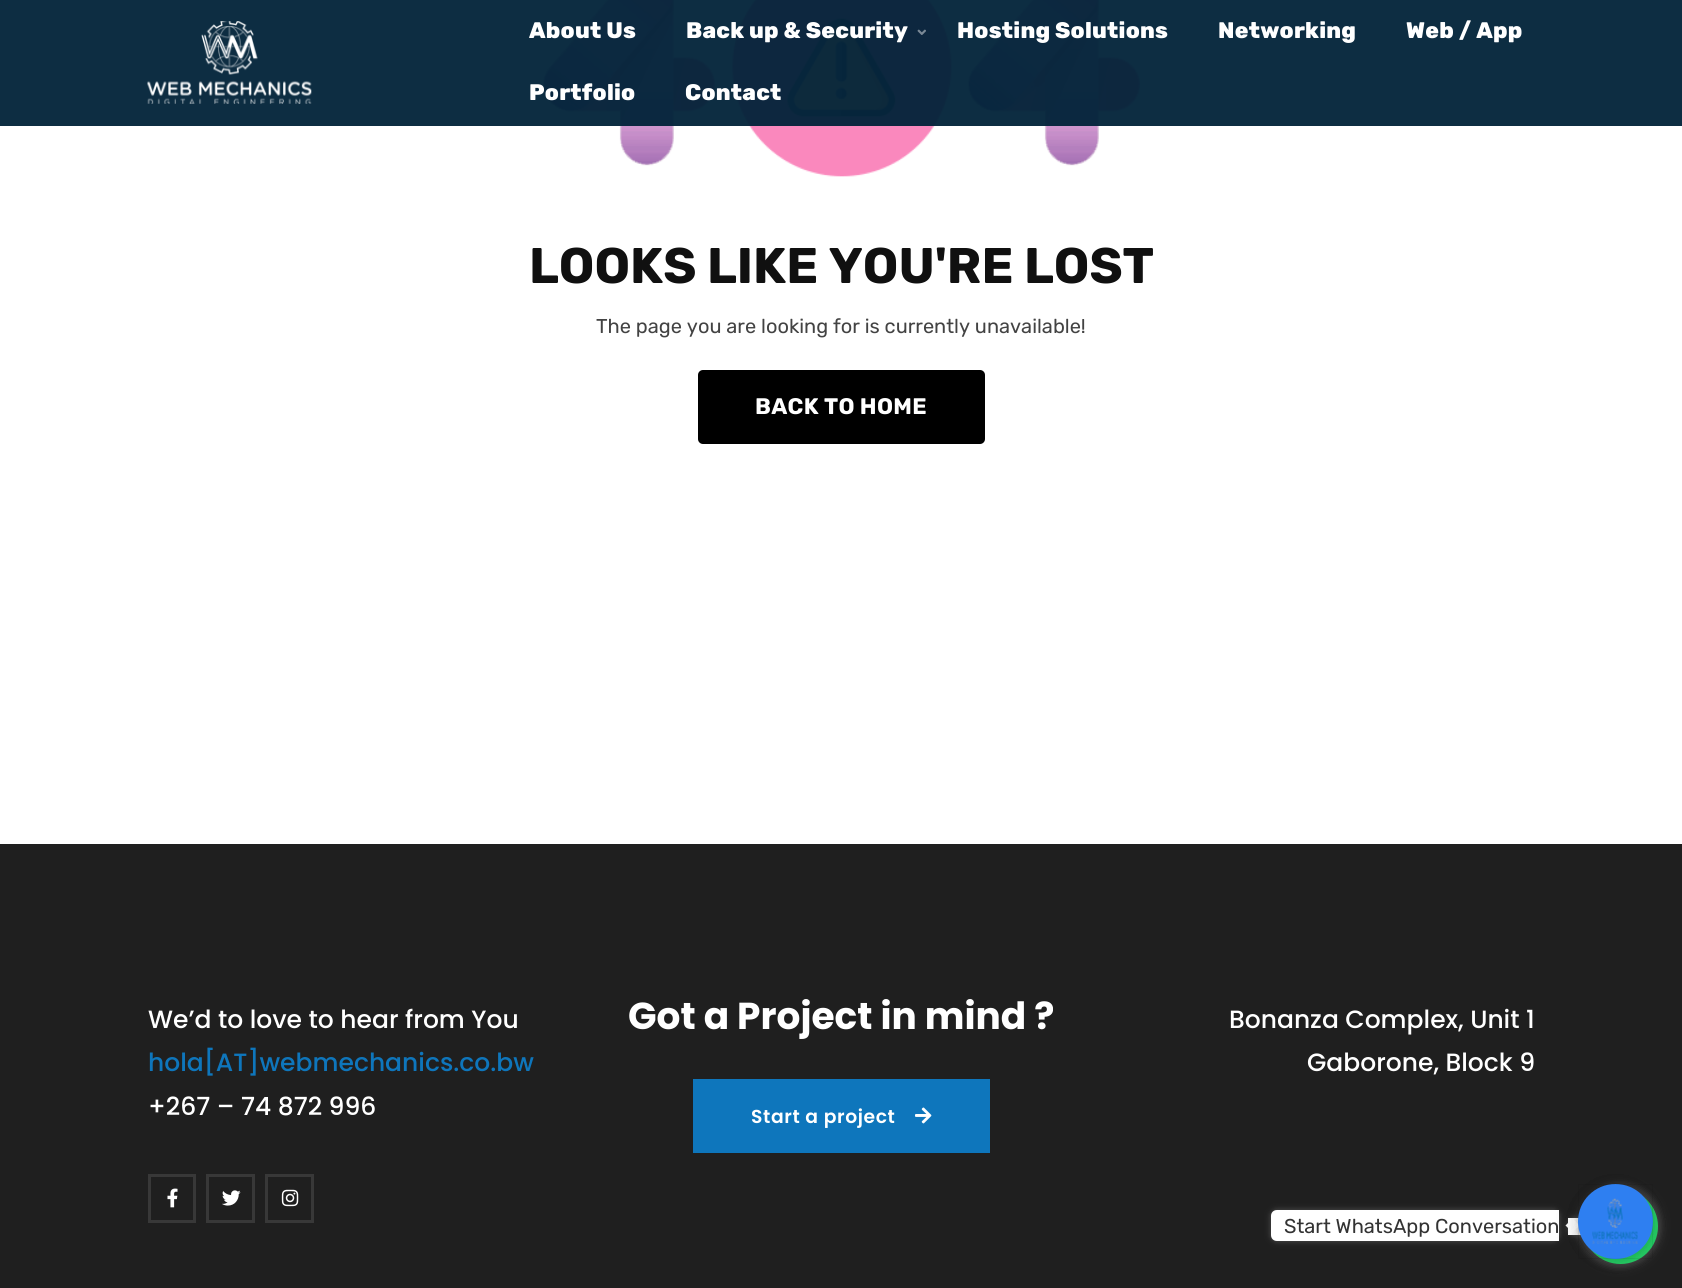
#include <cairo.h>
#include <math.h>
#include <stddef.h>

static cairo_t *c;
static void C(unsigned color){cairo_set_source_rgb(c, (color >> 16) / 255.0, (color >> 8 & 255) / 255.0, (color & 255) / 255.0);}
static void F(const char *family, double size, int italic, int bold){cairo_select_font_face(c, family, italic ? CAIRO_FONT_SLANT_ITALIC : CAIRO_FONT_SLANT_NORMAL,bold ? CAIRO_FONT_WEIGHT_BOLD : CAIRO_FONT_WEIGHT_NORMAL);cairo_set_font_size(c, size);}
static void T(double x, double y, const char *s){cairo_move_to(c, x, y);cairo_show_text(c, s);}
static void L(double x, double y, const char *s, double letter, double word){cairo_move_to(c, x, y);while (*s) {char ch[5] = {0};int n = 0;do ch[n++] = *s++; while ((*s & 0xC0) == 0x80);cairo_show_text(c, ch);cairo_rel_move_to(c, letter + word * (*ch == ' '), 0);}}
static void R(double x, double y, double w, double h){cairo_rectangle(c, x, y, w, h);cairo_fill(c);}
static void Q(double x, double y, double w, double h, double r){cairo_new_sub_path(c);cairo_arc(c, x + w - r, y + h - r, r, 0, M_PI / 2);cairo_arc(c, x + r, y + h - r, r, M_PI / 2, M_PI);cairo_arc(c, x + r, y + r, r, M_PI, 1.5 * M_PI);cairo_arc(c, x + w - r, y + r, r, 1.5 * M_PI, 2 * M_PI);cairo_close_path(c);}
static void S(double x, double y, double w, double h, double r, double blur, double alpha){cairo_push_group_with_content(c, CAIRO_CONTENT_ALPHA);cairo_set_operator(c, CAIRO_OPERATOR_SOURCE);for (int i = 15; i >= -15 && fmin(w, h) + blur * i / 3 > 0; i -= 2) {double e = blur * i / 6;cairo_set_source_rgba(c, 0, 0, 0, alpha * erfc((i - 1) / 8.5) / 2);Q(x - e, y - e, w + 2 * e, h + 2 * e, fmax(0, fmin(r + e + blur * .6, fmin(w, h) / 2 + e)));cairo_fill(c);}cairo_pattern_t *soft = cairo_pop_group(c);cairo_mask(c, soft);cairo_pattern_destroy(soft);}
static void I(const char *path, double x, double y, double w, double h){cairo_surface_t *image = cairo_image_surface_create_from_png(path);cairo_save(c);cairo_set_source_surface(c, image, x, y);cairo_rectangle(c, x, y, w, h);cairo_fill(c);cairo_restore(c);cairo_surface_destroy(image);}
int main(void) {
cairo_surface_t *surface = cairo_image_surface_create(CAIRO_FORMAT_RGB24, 1682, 1288);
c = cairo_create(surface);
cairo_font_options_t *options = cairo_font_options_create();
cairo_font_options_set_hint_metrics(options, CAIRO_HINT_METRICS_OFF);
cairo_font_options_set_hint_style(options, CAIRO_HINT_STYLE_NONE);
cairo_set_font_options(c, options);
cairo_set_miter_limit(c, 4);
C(0xffffff);
cairo_paint(c);
I("3.png",542,0,598,177);
cairo_set_source_rgba(c,0.008,0.137,0.224,0.95);
R(0,0,1682,126);
I("1.png",147,21,165,83);
F("Rubik ExtraBold",22.5,0,0);
C(0xffffff);
L(529,38,"About Us",.25,0);
L(686,38,"Back up & Security",.25,0);
I("2.png",917,29,9,6);
L(957,38,"Hosting Solutions",.25,0);
L(1218,38,"Networking",.25,0);
L(1406,38,"Web / App",.25,0);
L(529,100,"Portfolio",.25,0);
L(685,100,"Contact",.25,0);
F("Rubik",50,0,1);
C(0x101010);
T(529,283,"LOOKS LIKE YOU'RE LOST");
F("Rubik",20,0,0);
C(0x434343);
T(596,333,"The page you are looking for is currently unavailable!");
C(0x000000);
Q(698,370,287,74,5);
cairo_fill(c);
F("Rubik",22.5,0,1);
C(0xffffff);
L(755,414,"BACK TO HOME",.3,0);
C(0x1f1f1f);
R(0,844,1682,444);
F("Poppins Medium",25,0,0);
C(0xffffff);
T(148,1028,"We’d to love to hear from You");
C(0x0e76bc);
T(148,1071,"hola[AT]webmechanics.co.bw");
C(0xffffff);
T(148,1115,"+267 – 74 872 996");
cairo_rectangle(c,149.5,1175.5,45,46);
C(0x383838);
cairo_set_line_width(c,3);
cairo_stroke(c);
I("4.png",167,1188,11,20);
cairo_rectangle(c,207.5,1175.5,46,46);
cairo_stroke(c);
I("5.png",222,1190,19,16);
cairo_rectangle(c,266.5,1175.5,46,46);
cairo_stroke(c);
I("6.png",281,1189,18,18);
F("Poppins",37.5,0,1);
C(0xffffff);
T(628,1029,"Got a Project in mind ?");
C(0x0e76bc);
R(693,1079,297,74);
F("Poppins SemiBold",18.75,0,0);
C(0xffffff);
L(751,1123,"Start a project",.6,0);
I("7.png",915,1107,17,17);
F("Poppins Medium",25,0,0);
T(1229,1028,"Bonanza Complex, Unit 1");
T(1307,1071,"Gaborone, Block 9");
C(0x888888);
S(1271,1210,288,31,6,3,.5);
C(0xffffff);
cairo_new_path(c);
cairo_move_to(c,1277,1210);
cairo_line_to(c,1559,1210);
cairo_line_to(c,1559,1241);
cairo_line_to(c,1277,1241);
cairo_curve_to(c,1273.5,1241,1271,1238.5,1271,1235);
cairo_line_to(c,1271,1216);
cairo_curve_to(c,1271,1212.5,1273.5,1210,1277,1210);
cairo_close_path(c);
cairo_fill(c);
C(0x888888);
S(1568,1218,22,17,6,3,.5);
C(0xffffff);
R(1568,1218,13,17);
F("Rubik",20,0,0);
C(0x333333);
T(1284,1233,"Start WhatsApp Conversation");
C(0x888888);
S(1580,1186,80,80,40,4.5,.5);
C(0xffffff);
cairo_new_path(c);
cairo_move_to(c,1565.5,1225.5);
cairo_line_to(c,1572.5,1218.5);
cairo_line_to(c,1579.5,1225.5);
cairo_line_to(c,1572.5,1232.5);
cairo_close_path(c);
cairo_fill(c);
C(0x25d367);
cairo_arc(c,1620.5,1226.5,37.5,0,2 * M_PI);
cairo_fill(c);
C(0x000000);
S(1578,1186,75,75,37.5,15,.08);
S(1578,1185,75,75,37.5,4,.06);
cairo_rectangle(c,1578.5,1184.5,74,74);
cairo_set_source_rgba(c,0,0,0,0.04);
cairo_set_line_width(c,1);
cairo_stroke(c);
C(0x000000);
S(1578,1186,75,75,37.5,15,.08);
S(1578,1185,75,75,37.5,4,.06);
C(0x2e7ff1);
cairo_arc(c,1615.5,1221.5,37.5,0,2 * M_PI);
cairo_fill(c);
cairo_rectangle(c,1578.5,1184.5,74,74);
cairo_set_source_rgba(c,0,0,0,0.04);
cairo_stroke(c);
I("8.png",1592,1198,46,46);
cairo_surface_write_to_png(surface, "o.png");
cairo_font_options_destroy(options);
cairo_destroy(c);
cairo_surface_destroy(surface);
return 0;
}
